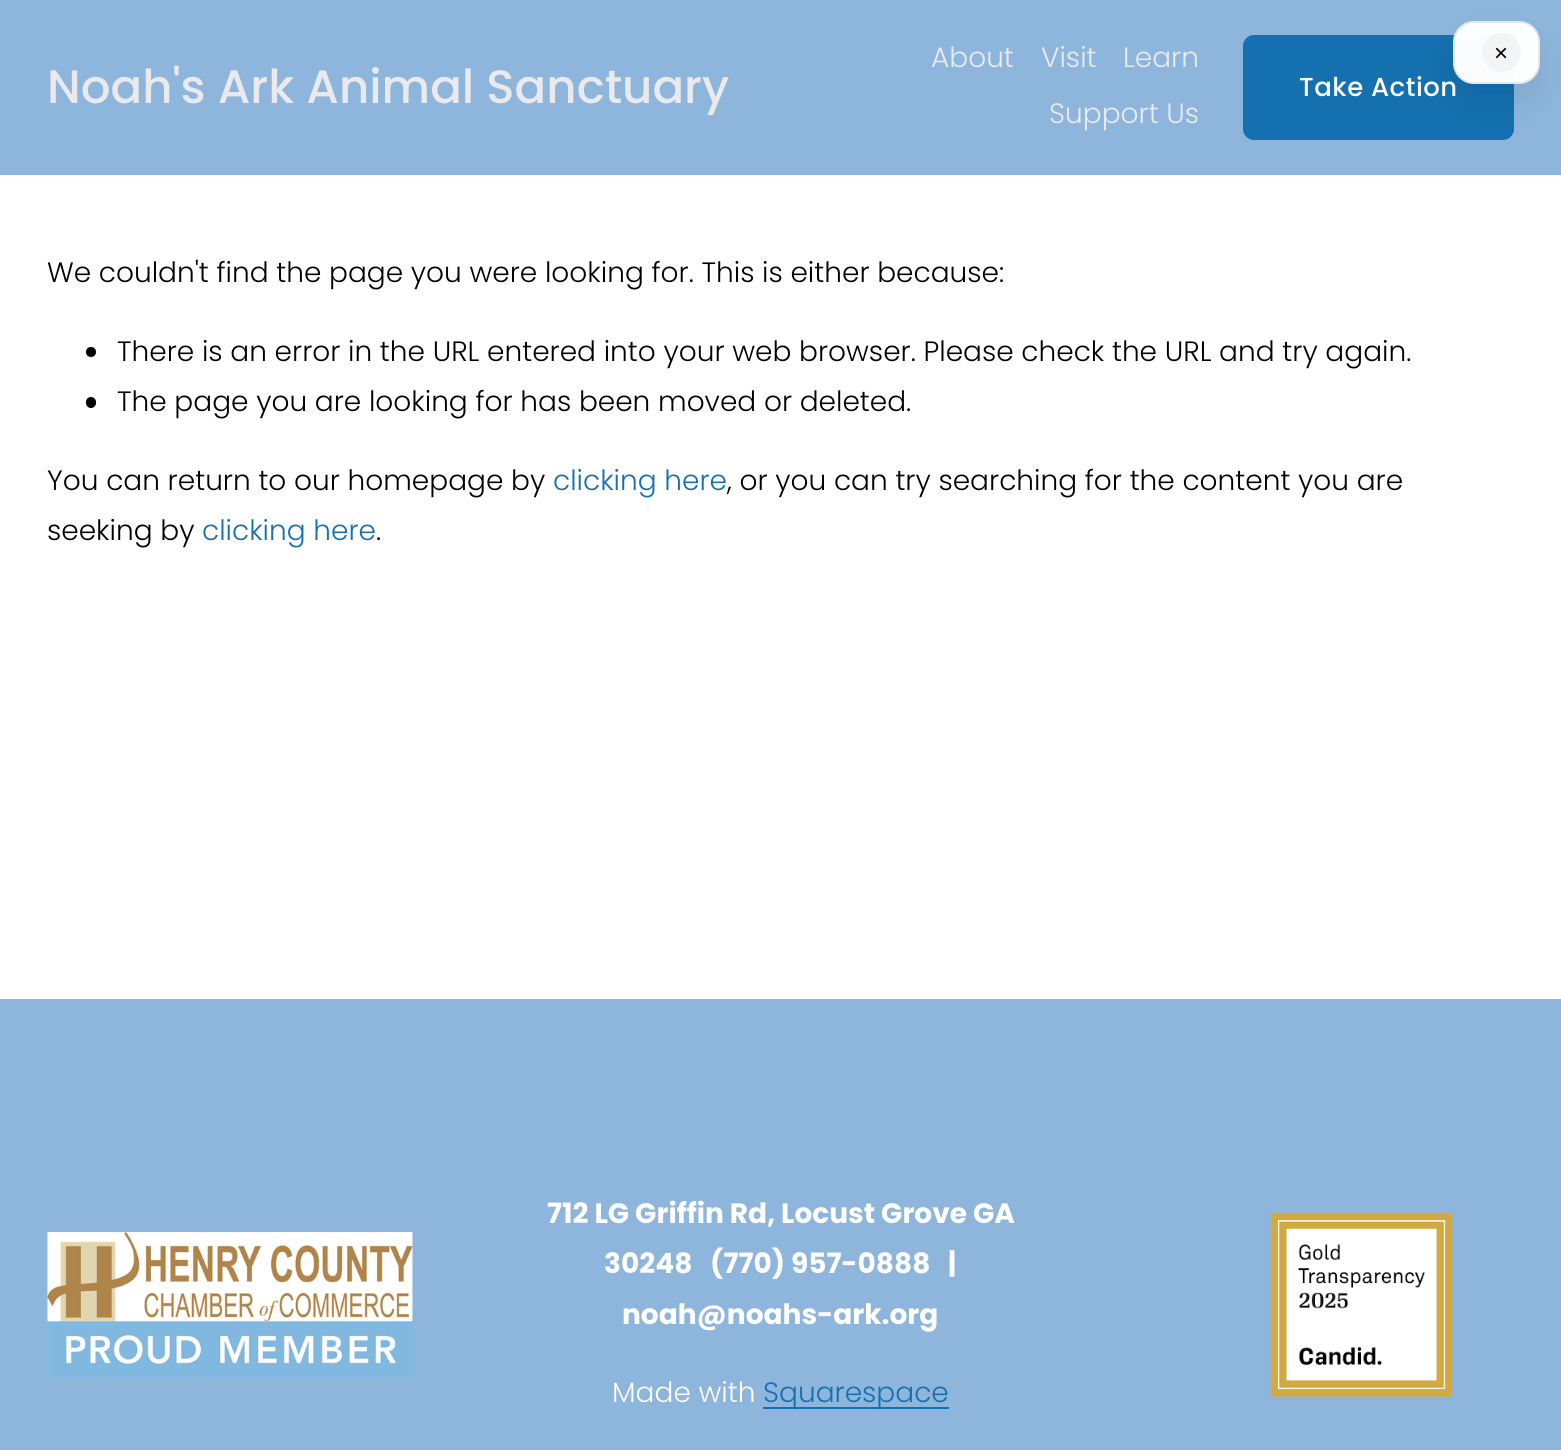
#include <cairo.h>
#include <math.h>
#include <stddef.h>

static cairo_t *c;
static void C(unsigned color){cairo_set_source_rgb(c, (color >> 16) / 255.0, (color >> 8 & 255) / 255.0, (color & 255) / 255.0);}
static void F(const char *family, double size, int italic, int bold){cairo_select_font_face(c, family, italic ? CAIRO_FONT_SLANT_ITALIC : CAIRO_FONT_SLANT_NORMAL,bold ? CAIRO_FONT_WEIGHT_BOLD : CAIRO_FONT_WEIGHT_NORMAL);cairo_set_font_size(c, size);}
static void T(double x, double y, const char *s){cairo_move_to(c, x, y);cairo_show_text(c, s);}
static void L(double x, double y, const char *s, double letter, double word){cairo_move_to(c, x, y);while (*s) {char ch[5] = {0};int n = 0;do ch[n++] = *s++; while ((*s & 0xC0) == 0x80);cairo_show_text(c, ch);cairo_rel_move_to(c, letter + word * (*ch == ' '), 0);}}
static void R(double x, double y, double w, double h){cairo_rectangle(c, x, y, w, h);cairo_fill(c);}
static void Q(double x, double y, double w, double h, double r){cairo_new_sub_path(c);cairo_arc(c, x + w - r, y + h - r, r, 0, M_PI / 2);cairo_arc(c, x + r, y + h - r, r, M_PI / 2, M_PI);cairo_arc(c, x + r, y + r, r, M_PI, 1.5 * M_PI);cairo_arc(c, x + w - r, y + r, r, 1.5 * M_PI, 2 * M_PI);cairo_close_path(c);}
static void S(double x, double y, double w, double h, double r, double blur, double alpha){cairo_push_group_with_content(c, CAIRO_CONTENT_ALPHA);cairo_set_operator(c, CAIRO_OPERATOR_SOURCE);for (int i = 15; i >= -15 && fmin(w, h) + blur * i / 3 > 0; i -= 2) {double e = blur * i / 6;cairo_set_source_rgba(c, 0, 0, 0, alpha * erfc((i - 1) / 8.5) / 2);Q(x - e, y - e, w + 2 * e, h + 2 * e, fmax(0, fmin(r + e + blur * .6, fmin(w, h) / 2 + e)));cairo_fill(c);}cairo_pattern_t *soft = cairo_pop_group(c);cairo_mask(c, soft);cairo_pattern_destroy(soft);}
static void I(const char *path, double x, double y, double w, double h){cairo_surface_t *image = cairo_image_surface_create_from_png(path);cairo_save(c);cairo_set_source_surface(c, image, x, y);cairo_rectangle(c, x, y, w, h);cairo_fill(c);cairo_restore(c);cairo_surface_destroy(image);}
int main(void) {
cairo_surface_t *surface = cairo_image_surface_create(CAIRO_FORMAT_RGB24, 1561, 1450);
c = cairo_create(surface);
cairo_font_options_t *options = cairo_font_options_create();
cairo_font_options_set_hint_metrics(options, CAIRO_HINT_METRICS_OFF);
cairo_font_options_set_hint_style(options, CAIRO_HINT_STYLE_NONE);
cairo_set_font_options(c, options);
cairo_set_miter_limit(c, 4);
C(0xffffff);
cairo_paint(c);
C(0x8eb6dc);
R(0,0,1561,175);
F("Poppins Medium",46.75,0,0);
C(0xeaeaee);
T(47,103,"Noah's Ark Animal Sanctuary");
F("Poppins Light",28,0,0);
T(931,67,"About");
T(1041,67,"Visit");
T(1123,67,"Learn");
T(1049,123,"Support Us");
C(0x1470af);
Q(1243,35,271,105,11);
cairo_fill(c);
F("Poppins Medium",26,0,0);
C(0xffffff);
L(1299,96,"Take Action",.5,0);
F("Poppins Light",28,0,0);
C(0x000000);
T(47,282,"We couldn't find the page you were looking for. This is either because:");
cairo_new_path(c);
cairo_arc(c,91,352,5,0,2 * M_PI);
cairo_fill(c);
T(117,361,"There is an error in the URL entered into your web browser. Please check the URL and try again.");
Q(86,397,10,11,5);
cairo_fill(c);
T(117,411,"The page you are looking for has been moved or deleted.");
T(47,490,"You can return to our homepage by");
C(0x1470af);
T(553,490,"clicking here");
C(0x000000);
T(727,490,", or you can try searching for the content you are");
T(47,540,"seeking by");
C(0x1470af);
T(202,540,"clicking here");
C(0x000000);
T(376,540,".");
C(0x8eb6dc);
R(0,999,1561,451);
I("1.png",47,1232,366,145);
F("Poppins",28,0,1);
C(0xffffff);
T(547,1223,"712 LG Griffin Rd, Locust Grove GA");
T(604,1273,"30248   (770) 957-0888   |");
T(622,1324,"noah@noahs-ark.org");
F("Poppins Light",28,0,0);
T(612,1402,"Made with");
C(0x1470af);
R(763,1407,186,2);
T(763,1402,"Squarespace");
I("2.png",1270,1212,183,185);
cairo_save(c);
cairo_set_fill_rule(c,CAIRO_FILL_RULE_EVEN_ODD);
cairo_new_path(c);
cairo_move_to(c,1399,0);
cairo_line_to(c,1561,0);
cairo_line_to(c,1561,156);
cairo_line_to(c,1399,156);
cairo_close_path(c);
cairo_move_to(c,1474,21);
cairo_line_to(c,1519,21);
cairo_curve_to(c,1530.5,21,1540,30.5,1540,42);
cairo_line_to(c,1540,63);
cairo_curve_to(c,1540,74.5,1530.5,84,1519,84);
cairo_line_to(c,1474,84);
cairo_curve_to(c,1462.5,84,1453,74.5,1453,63);
cairo_line_to(c,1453,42);
cairo_curve_to(c,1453,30.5,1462.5,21,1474,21);
cairo_close_path(c);
cairo_clip(c);
C(0x000000);
S(1453,39,87,63,21,17.5,.08);
cairo_restore(c);
cairo_set_source_rgba(c,1,1,1,0.98);
Q(1454,22,85,61,20);
cairo_fill_preserve(c);
C(0xe5e7eb);
cairo_stroke(c);
C(0xf3f4f6);
cairo_arc(c,1501.5,52.5,19.5,0,2 * M_PI);
cairo_fill(c);
F("Liberation Sans",24,0,0);
C(0x000000);
T(1494,61,"×");
cairo_surface_write_to_png(surface, "o.png");
cairo_font_options_destroy(options);
cairo_destroy(c);
cairo_surface_destroy(surface);
return 0;
}
